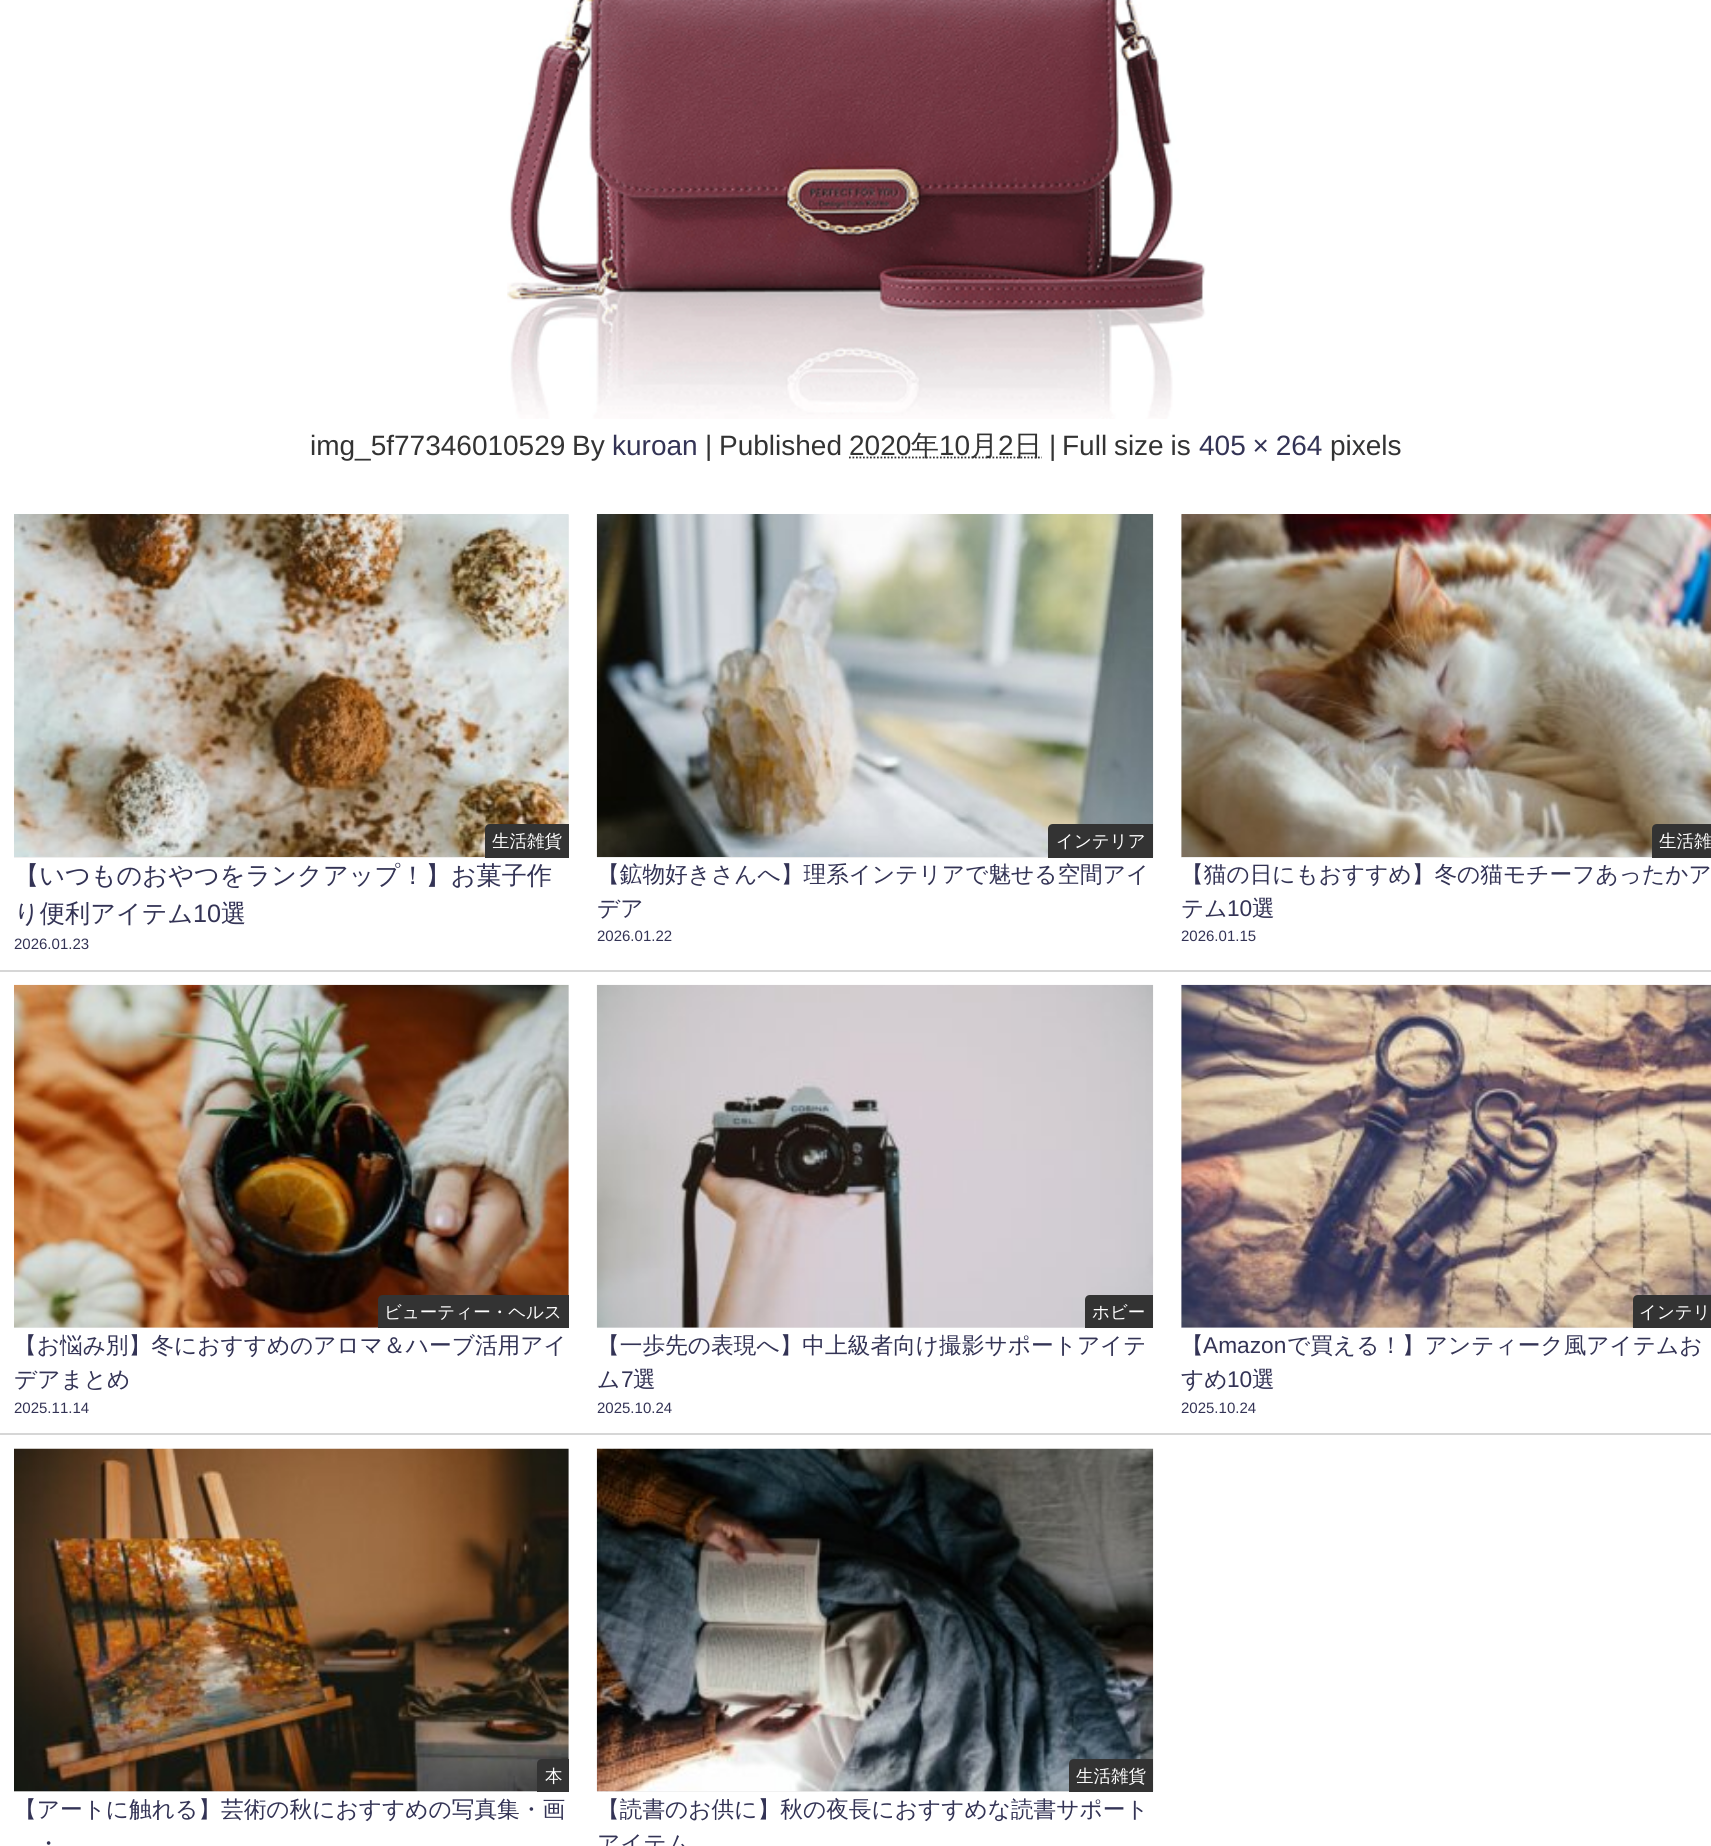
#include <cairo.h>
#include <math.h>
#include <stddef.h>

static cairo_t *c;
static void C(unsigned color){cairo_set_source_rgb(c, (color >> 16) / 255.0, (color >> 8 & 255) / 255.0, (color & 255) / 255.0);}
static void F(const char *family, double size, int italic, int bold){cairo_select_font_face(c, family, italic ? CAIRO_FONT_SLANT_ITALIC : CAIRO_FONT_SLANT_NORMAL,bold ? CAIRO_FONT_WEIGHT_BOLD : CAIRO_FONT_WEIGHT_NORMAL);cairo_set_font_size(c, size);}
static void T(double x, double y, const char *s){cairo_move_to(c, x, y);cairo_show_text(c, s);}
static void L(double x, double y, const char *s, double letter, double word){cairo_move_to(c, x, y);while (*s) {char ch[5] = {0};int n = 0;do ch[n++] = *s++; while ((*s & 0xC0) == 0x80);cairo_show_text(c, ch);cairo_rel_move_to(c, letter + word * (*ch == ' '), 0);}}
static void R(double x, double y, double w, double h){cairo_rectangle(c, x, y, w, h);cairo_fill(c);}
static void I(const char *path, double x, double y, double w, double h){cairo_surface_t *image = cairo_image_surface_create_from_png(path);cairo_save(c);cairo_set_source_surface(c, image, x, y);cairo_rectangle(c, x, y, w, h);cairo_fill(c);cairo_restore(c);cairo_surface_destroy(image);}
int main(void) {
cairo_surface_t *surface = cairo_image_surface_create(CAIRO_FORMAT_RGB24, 1711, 1846);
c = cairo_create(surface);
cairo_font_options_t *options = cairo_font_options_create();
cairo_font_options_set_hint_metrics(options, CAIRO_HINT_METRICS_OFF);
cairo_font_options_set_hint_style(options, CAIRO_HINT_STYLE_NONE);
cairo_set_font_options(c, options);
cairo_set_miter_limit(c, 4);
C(0xffffff);
cairo_paint(c);
I("1.png",507,0,699,419);
F("Liberation Sans",28,0,0);
C(0x333333);
T(310,455,"img_5f77346010529");
T(572,455,"By");
C(0x333355);
T(612,455,"kuroan");
C(0x333333);
T(705,455,"|");
T(719,455,"Published");
T(849,455,"2020");
cairo_new_path(c);
cairo_move_to(c,849,457.5);
cairo_line_to(c,1042,457.5);
cairo_set_line_width(c,1.8);
cairo_set_dash(c,(double[]){1.75,1.75},2,0);
cairo_stroke(c);
F("WenQuanYi Zen Hei Medium",28,0,0);
T(911,455,"年");
F("Liberation Sans",28,0,0);
T(939,455,"10");
F("WenQuanYi Zen Hei Medium",28,0,0);
T(970,455,"月");
F("Liberation Sans",28,0,0);
T(998,455,"2");
F("WenQuanYi Zen Hei Medium",28,0,0);
T(1014,455,"日");
F("Liberation Sans",28,0,0);
T(1049,455,"|");
L(1062,455,"Full size is",0,-1);
C(0x333355);
L(1199,455,"405 × 264",0,-1);
C(0x333333);
T(1330,455,"pixels");
C(0xd6d6d6);
R(0,970,1711,2);
C(0xeeeeee);
R(14,515,555,343);
I("2.png",14,514,555,343);
C(0x333333);
cairo_new_path(c);
cairo_move_to(c,490,824);
cairo_line_to(c,569,824);
cairo_line_to(c,569,858);
cairo_line_to(c,485,858);
cairo_line_to(c,485,829);
cairo_curve_to(c,485,826,487,824,490,824);
cairo_close_path(c);
cairo_fill(c);
F("WenQuanYi Zen Hei Medium",17.5,0,0);
C(0xffffff);
T(492,847,"生活雑貨");
F("WenQuanYi Zen Hei Medium",25.2,0,0);
C(0x333355);
T(14,884,"【いつものおやつをランクアップ！】お菓子作");
T(14,922,"り便利アイテム");
F("Liberation Sans",25.2,0,0);
T(193,922,"10");
F("WenQuanYi Zen Hei Medium",25.2,0,0);
T(221,922,"選");
F("Liberation Sans",15,0,0);
T(14,949,"2026.01.23");
C(0xeeeeee);
R(597,857,451,1);
I("3.png",596,514,558,343);
C(0x333333);
cairo_new_path(c);
cairo_move_to(c,1053,824);
cairo_line_to(c,1153,824);
cairo_line_to(c,1153,858);
cairo_line_to(c,1048,858);
cairo_line_to(c,1048,829);
cairo_curve_to(c,1048,826,1050,824,1053,824);
cairo_close_path(c);
cairo_fill(c);
F("WenQuanYi Zen Hei Medium",17.5,0,0);
C(0xffffff);
T(1056,847,"インテリア");
F("WenQuanYi Zen Hei Medium",22.7,0,0);
C(0x333355);
T(597,882,"【鉱物好きさんへ】理系インテリアで魅せる空間アイ");
T(597,916,"デア");
F("Liberation Sans",15,0,0);
T(597,941,"2026.01.22");
C(0xeeeeee);
R(1181,515,471,343);
I("4.png",1181,514,530,343);
C(0x333333);
cairo_new_path(c);
cairo_move_to(c,1657,824);
cairo_line_to(c,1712,824);
cairo_line_to(c,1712,858);
cairo_line_to(c,1652,858);
cairo_line_to(c,1652,829);
cairo_curve_to(c,1652,826,1654,824,1657,824);
cairo_close_path(c);
cairo_fill(c);
F("WenQuanYi Zen Hei Medium",17.5,0,0);
C(0xffffff);
T(1659,847,"生活雑");
F("WenQuanYi Zen Hei Medium",22.7,0,0);
C(0x333355);
T(1181,882,"【猫の日にもおすすめ】冬の猫モチーフあったかア");
T(1181,916,"テム");
F("Liberation Sans",22.7,0,0);
T(1227,916,"10");
F("WenQuanYi Zen Hei Medium",22.7,0,0);
T(1252,916,"選");
F("Liberation Sans",15,0,0);
T(1181,941,"2026.01.15");
C(0xd6d6d6);
R(0,1433,1711,2);
C(0xeeeeee);
R(14,985,555,343);
I("5.png",14,984,555,344);
C(0x333333);
cairo_new_path(c);
cairo_move_to(c,383,1295);
cairo_line_to(c,569,1295);
cairo_line_to(c,569,1328);
cairo_line_to(c,378,1328);
cairo_line_to(c,378,1300);
cairo_curve_to(c,378,1297,380,1295,383,1295);
cairo_close_path(c);
cairo_fill(c);
F("WenQuanYi Zen Hei Medium",17.5,0,0);
C(0xffffff);
T(384,1318,"ビューティー・ヘルス");
F("WenQuanYi Zen Hei Medium",22.7,0,0);
C(0x333355);
T(14,1353,"【お悩み別】冬におすすめのアロマ＆ハーブ活用アイ");
T(14,1387,"デアまとめ");
F("Liberation Sans",15,0,0);
T(14,1413,"2025.11.14");
C(0xeeeeee);
R(597,1327,488,1);
I("6.png",596,984,558,344);
C(0x333333);
cairo_new_path(c);
cairo_move_to(c,1090,1295);
cairo_line_to(c,1153,1295);
cairo_line_to(c,1153,1328);
cairo_line_to(c,1085,1328);
cairo_line_to(c,1085,1300);
cairo_curve_to(c,1085,1297,1087,1295,1090,1295);
cairo_close_path(c);
cairo_fill(c);
F("WenQuanYi Zen Hei Medium",17.5,0,0);
C(0xffffff);
T(1092,1318,"ホビー");
F("WenQuanYi Zen Hei Medium",22.7,0,0);
C(0x333355);
T(597,1353,"【一歩先の表現へ】中上級者向け撮影サポートアイテ");
T(597,1387,"ム");
F("Liberation Sans",22.7,0,0);
T(621,1387,"7");
F("WenQuanYi Zen Hei Medium",22.7,0,0);
T(633,1387,"選");
F("Liberation Sans",15,0,0);
T(597,1413,"2025.10.24");
C(0xeeeeee);
R(1181,985,452,343);
I("7.png",1181,984,530,344);
C(0x333333);
cairo_new_path(c);
cairo_move_to(c,1638,1295);
cairo_line_to(c,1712,1295);
cairo_line_to(c,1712,1328);
cairo_line_to(c,1633,1328);
cairo_line_to(c,1633,1300);
cairo_curve_to(c,1633,1297,1635,1295,1638,1295);
cairo_close_path(c);
cairo_fill(c);
F("WenQuanYi Zen Hei Medium",17.5,0,0);
C(0xffffff);
T(1639,1318,"インテリ");
F("WenQuanYi Zen Hei Medium",22.7,0,0);
C(0x333355);
T(1181,1353,"【");
F("Liberation Sans",22.7,0,0);
T(1203,1353,"Amazon");
F("WenQuanYi Zen Hei Medium",22.7,0,0);
T(1287,1353,"で買える！】アンティーク風アイテムお");
T(1181,1387,"すめ");
F("Liberation Sans",22.7,0,0);
T(1227,1387,"10");
F("WenQuanYi Zen Hei Medium",22.7,0,0);
T(1252,1387,"選");
F("Liberation Sans",15,0,0);
T(1181,1413,"2025.10.24");
C(0xeeeeee);
R(14,1449,555,343);
I("8.png",14,1448,555,344);
C(0x333333);
cairo_new_path(c);
cairo_move_to(c,542,1759);
cairo_line_to(c,569,1759);
cairo_line_to(c,569,1792);
cairo_line_to(c,537,1792);
cairo_line_to(c,537,1764);
cairo_curve_to(c,537,1761,539,1759,542,1759);
cairo_close_path(c);
cairo_fill(c);
F("WenQuanYi Zen Hei Medium",17.5,0,0);
C(0xffffff);
T(545,1782,"本");
F("WenQuanYi Zen Hei Medium",22.7,0,0);
C(0x333355);
T(14,1817,"【アートに触れる】芸術の秋におすすめの写真集・画");
T(37,1851,"・");
C(0xeeeeee);
R(597,1791,472,1);
I("9.png",596,1448,558,344);
C(0x333333);
cairo_new_path(c);
cairo_move_to(c,1074,1759);
cairo_line_to(c,1153,1759);
cairo_line_to(c,1153,1792);
cairo_line_to(c,1069,1792);
cairo_line_to(c,1069,1764);
cairo_curve_to(c,1069,1761,1071,1759,1074,1759);
cairo_close_path(c);
cairo_fill(c);
F("WenQuanYi Zen Hei Medium",17.5,0,0);
C(0xffffff);
T(1076,1782,"生活雑貨");
F("WenQuanYi Zen Hei Medium",22.7,0,0);
C(0x333355);
T(597,1817,"【読書のお供に】秋の夜長におすすめな読書サポート");
T(597,1851,"アイテム");
cairo_surface_write_to_png(surface, "o.png");
cairo_font_options_destroy(options);
cairo_destroy(c);
cairo_surface_destroy(surface);
return 0;
}
